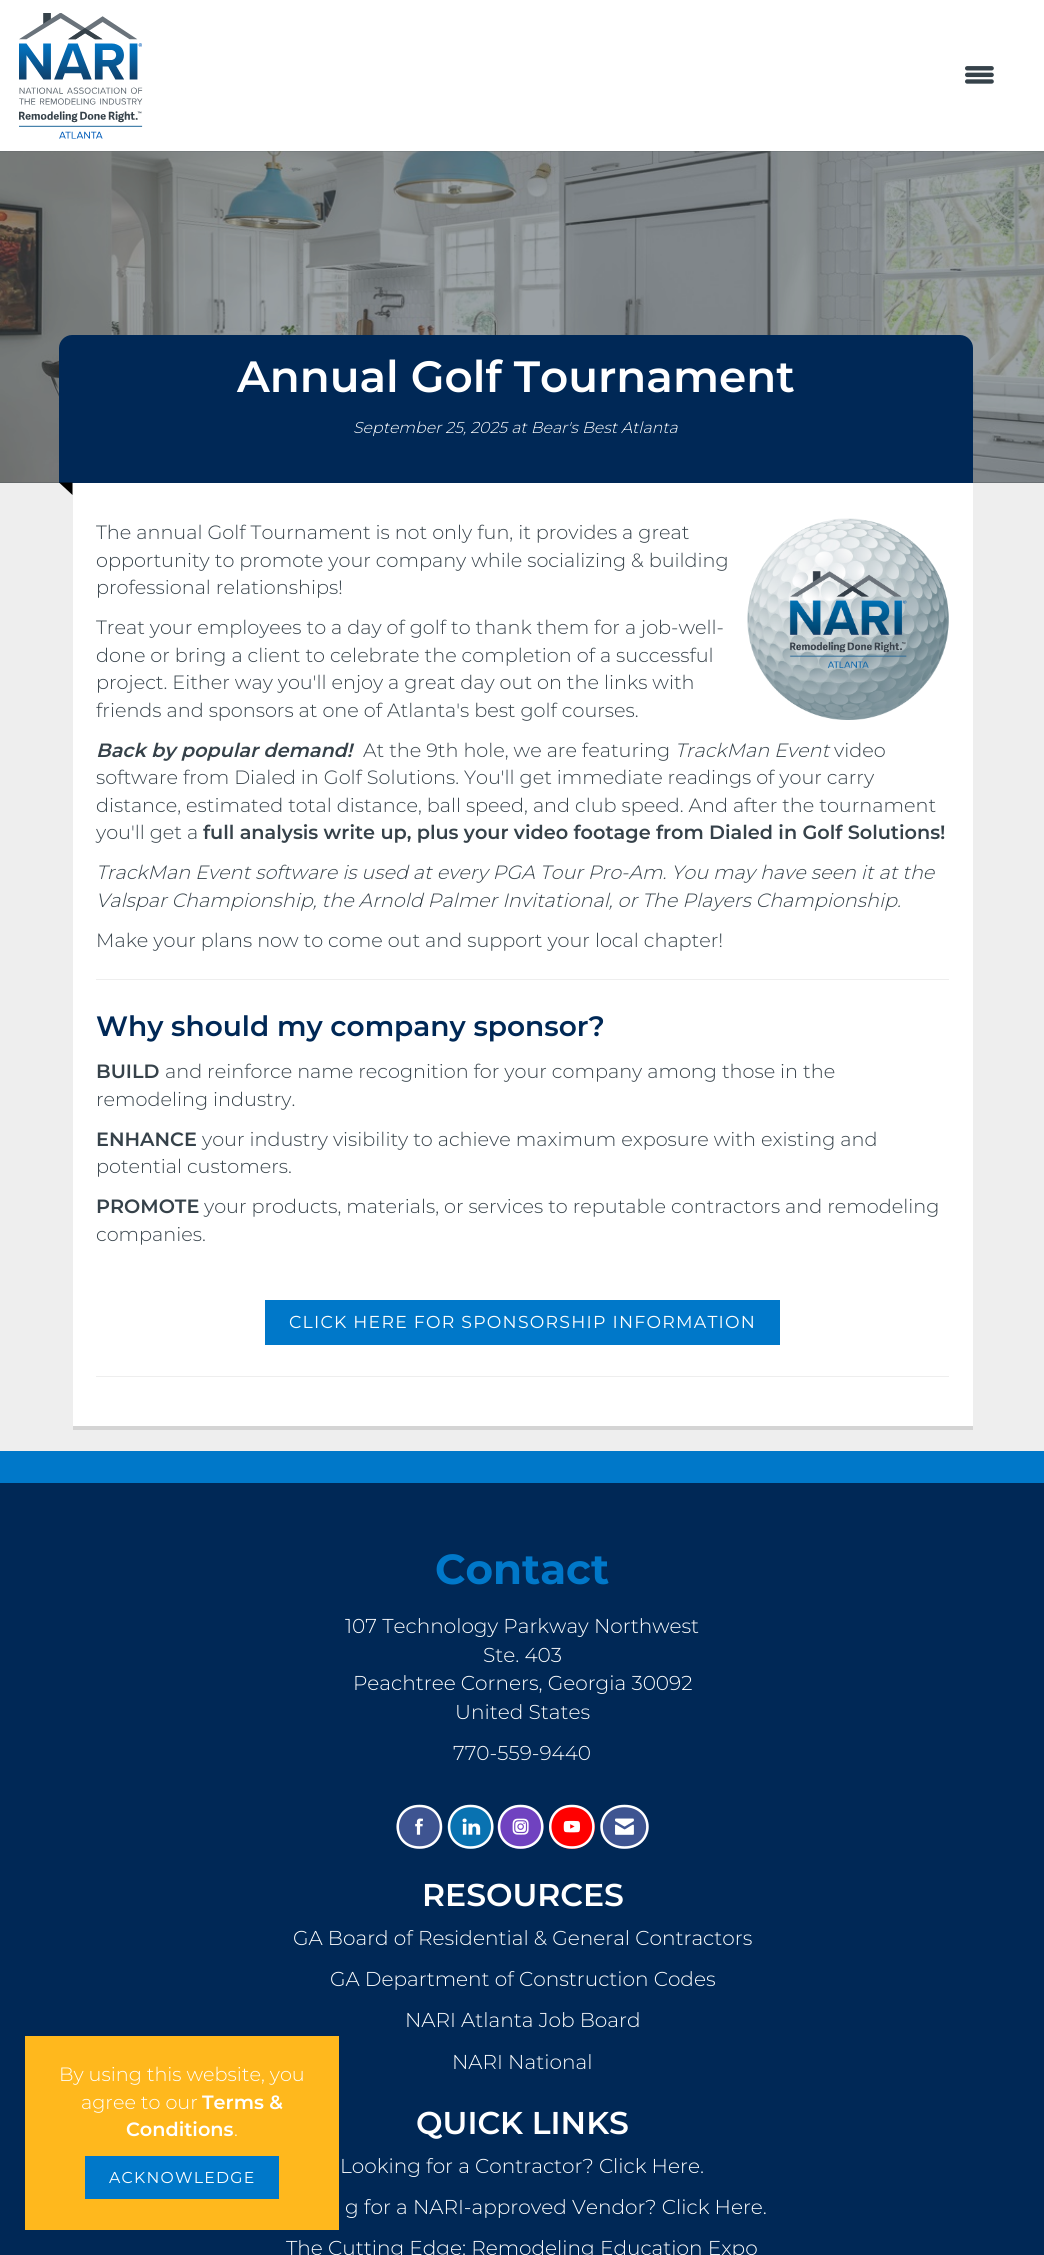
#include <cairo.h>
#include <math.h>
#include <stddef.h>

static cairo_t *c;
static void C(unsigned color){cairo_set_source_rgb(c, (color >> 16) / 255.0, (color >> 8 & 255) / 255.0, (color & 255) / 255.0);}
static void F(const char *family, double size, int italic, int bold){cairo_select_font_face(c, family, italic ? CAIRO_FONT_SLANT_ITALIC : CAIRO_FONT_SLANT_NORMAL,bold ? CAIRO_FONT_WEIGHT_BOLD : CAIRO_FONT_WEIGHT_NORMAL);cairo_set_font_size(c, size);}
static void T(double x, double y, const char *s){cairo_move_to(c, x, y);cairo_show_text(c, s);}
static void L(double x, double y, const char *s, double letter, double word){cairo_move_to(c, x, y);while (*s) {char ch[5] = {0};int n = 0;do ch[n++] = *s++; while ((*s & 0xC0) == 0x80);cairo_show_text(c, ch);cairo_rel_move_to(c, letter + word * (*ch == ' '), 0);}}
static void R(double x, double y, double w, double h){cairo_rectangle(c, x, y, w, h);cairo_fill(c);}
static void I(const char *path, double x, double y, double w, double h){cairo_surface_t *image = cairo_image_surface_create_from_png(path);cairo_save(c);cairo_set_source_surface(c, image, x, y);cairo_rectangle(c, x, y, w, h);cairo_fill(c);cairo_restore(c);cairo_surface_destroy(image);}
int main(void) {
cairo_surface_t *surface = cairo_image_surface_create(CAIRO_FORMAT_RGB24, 1044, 2255);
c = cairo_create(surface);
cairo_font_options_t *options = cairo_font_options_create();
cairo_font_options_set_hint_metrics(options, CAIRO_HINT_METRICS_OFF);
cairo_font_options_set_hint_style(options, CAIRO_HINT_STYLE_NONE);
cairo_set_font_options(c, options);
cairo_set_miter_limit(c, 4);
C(0xffffff);
cairo_paint(c);
I("1.png",19,13,124,126);
I("2.png",965,66,29,18);
C(0xeeeeee);
R(0,483,1044,968);
C(0x575d61);
R(0,151,1044,332);
I("3.png",0,151,1044,332);
C(0x002856);
cairo_new_path(c);
cairo_move_to(c,72,335);
cairo_line_to(c,960,335);
cairo_curve_to(c,967,335,973,341,973,348);
cairo_line_to(c,973,483);
cairo_line_to(c,59,483);
cairo_line_to(c,59,348);
cairo_curve_to(c,59,341,65,335,72,335);
cairo_close_path(c);
cairo_fill(c);
F("Montserrat SemiBold",43.75,0,0);
C(0xffffff);
T(237,392,"Annual Golf Tournament");
F("Montserrat Light",15.75,1,0);
T(353,433,"September 25, 2025 at Bear's Best Atlanta");
C(0x000000);
cairo_new_path(c);
cairo_move_to(c,59,482.5);
cairo_line_to(c,72.5,482.5);
cairo_line_to(c,72.5,495);
cairo_close_path(c);
cairo_fill(c);
C(0xd4d4d4);
cairo_new_path(c);
cairo_move_to(c,73,1426);
cairo_line_to(c,73,1430);
cairo_line_to(c,973,1430);
cairo_line_to(c,973,486);
cairo_line_to(c,972,486);
cairo_line_to(c,972,1426);
cairo_close_path(c);
cairo_fill(c);
C(0xffffff);
R(73,483,900,943);
F("Montserrat Light",19.25,0,0);
C(0x36424a);
T(96,539,"The annual Golf Tournament is not only fun, it provides a great");
T(96,567,"opportunity to promote your company while socializing & building");
T(96,594,"professional relationships!");
I("4.png",747,518,202,202);
T(96,634,"Treat your employees to a day of golf to thank them for a job-well-");
T(96,662,"done or bring a client to celebrate the completion of a successful");
T(96,689,"project. Either way you'll enjoy a great day out on the links with");
T(96,717,"friends and sponsors at one of Atlanta's best golf courses.");
F("Montserrat SemiBold",19.25,1,0);
T(96,757,"Back by popular demand!");
F("Montserrat Light",19.25,0,0);
T(363,757,"At the 9th hole, we are featuring");
F("Montserrat Light",19.25,1,0);
T(675,757,"TrackMan Event");
F("Montserrat Light",19.25,0,0);
T(834,757,"video");
T(96,784,"software from Dialed in Golf Solutions. You'll get immediate readings of your carry");
T(96,812,"distance, estimated total distance, ball speed, and club speed. And after the tournament");
T(96,839,"you'll get a");
F("Montserrat SemiBold",19.25,0,0);
T(203,839,"full analysis write up, plus your video footage from Dialed in Golf Solutions!");
F("Montserrat Light",19.25,1,0);
T(96,879,"TrackMan Event software is used at every PGA Tour Pro-Am. You may have seen it at the");
T(96,907,"Valspar Championship, the Arnold Palmer Invitational, or The Players Championship.");
F("Montserrat Light",19.25,0,0);
T(96,947,"Make your plans now to come out and support your local chapter!");
C(0xeeeeee);
R(96,979,853,1);
F("Montserrat SemiBold",28,0,0);
C(0x002856);
T(96,1036,"Why should my company sponsor?");
F("Montserrat SemiBold",19.25,0,0);
C(0x36424a);
T(96,1078,"BUILD");
F("Montserrat Light",19.25,0,0);
T(165,1078,"and reinforce name recognition for your company among those in the");
T(96,1106,"remodeling industry.");
F("Montserrat SemiBold",19.25,0,0);
T(96,1146,"ENHANCE");
F("Montserrat Light",19.25,0,0);
T(202,1146,"your industry visibility to achieve maximum exposure with existing and");
T(96,1173,"potential customers.");
F("Montserrat SemiBold",19.25,0,0);
T(96,1213,"PROMOTE");
F("Montserrat Light",19.25,0,0);
T(204,1213,"your products, materials, or services to reputable contractors and remodeling");
T(96,1241,"companies.");
C(0x0078c9);
R(265,1300,515,45);
F("Montserrat",17.3,0,0);
C(0xffffff);
L(289,1328,"CLICK HERE FOR SPONSORSHIP INFORMATION",1.25,0);
C(0xeeeeee);
R(96,1376,853,1);
C(0x002856);
R(0,1483,1044,772);
C(0xffb81d);
R(25,2036,314,194);
F("Montserrat Light",19.25,0,0);
C(0xffffff);
T(59,2081,"By using this website, you");
T(81,2109,"agree to our");
F("Montserrat SemiBold",19.25,0,0);
T(202,2109,"Terms &");
T(126,2136,"Conditions");
F("Montserrat Light",19.25,0,0);
T(234,2136,".");
C(0x0078c9);
R(85,2156,194,43);
F("Montserrat",15.75,0,0);
C(0xffffff);
L(109,2183,"ACKNOWLEDGE",1.25,0);
C(0x0078c9);
R(0,1451,1044,32);
F("Montserrat",42,0,1);
T(435,1584,"Contact");
F("Montserrat Light",20.1,0,0);
C(0xffffff);
T(345,1633,"107 Technology Parkway Northwest");
T(483,1662,"Ste. 403");
T(353,1690,"Peachtree Corners, Georgia 30092");
T(455,1719,"United States");
T(453,1760,"770-559-9440");
C(0x3e5491);
cairo_new_path(c);
cairo_move_to(c,419.5,1805);
cairo_curve_to(c,432,1805,442.5,1815,442.5,1827);
cairo_curve_to(c,442.5,1839,432,1849,419.5,1849);
cairo_curve_to(c,407,1849,396.5,1839,396.5,1827);
cairo_curve_to(c,396.5,1815,407,1805,419.5,1805);
cairo_close_path(c);
cairo_fill(c);
cairo_new_path(c);
cairo_move_to(c,419.5,1806);
cairo_curve_to(c,448,1806,448,1847.5,419.5,1847.5);
cairo_curve_to(c,390.5,1847.5,390.5,1806,419.5,1806);
cairo_close_path(c);
C(0xffffff);
cairo_set_line_width(c,2.5);
cairo_stroke(c);
I("5.png",415,1818,8,17);
C(0x0972b1);
cairo_new_path(c);
cairo_move_to(c,470.5,1805);
cairo_curve_to(c,483,1805,493.5,1815,493.5,1827);
cairo_curve_to(c,493.5,1839,483,1849,470.5,1849);
cairo_curve_to(c,458,1849,447.5,1839,447.5,1827);
cairo_curve_to(c,447.5,1815,458,1805,470.5,1805);
cairo_close_path(c);
cairo_fill(c);
cairo_new_path(c);
cairo_move_to(c,470.5,1806);
cairo_curve_to(c,499.5,1806,499.5,1847.5,470.5,1847.5);
cairo_curve_to(c,442,1847.5,442,1806,470.5,1806);
cairo_close_path(c);
C(0xffffff);
cairo_stroke(c);
I("6.png",462,1818,19,17);
C(0x7042c0);
cairo_new_path(c);
cairo_move_to(c,520.5,1805);
cairo_curve_to(c,533,1805,543.5,1815,543.5,1827);
cairo_curve_to(c,543.5,1839,533,1849,520.5,1849);
cairo_curve_to(c,508,1849,497.5,1839,497.5,1827);
cairo_curve_to(c,497.5,1815,508,1805,520.5,1805);
cairo_close_path(c);
cairo_fill(c);
cairo_new_path(c);
cairo_move_to(c,520.5,1806);
cairo_curve_to(c,549.5,1806,549.5,1847.5,520.5,1847.5);
cairo_curve_to(c,492,1847.5,492,1806,520.5,1806);
cairo_close_path(c);
C(0xffffff);
cairo_stroke(c);
I("7.png",512,1818,17,17);
C(0xff0000);
cairo_new_path(c);
cairo_move_to(c,572,1805);
cairo_curve_to(c,584.5,1805,595,1815,595,1827);
cairo_curve_to(c,595,1839,584.5,1849,572,1849);
cairo_curve_to(c,559.5,1849,549,1839,549,1827);
cairo_curve_to(c,549,1815,559.5,1805,572,1805);
cairo_close_path(c);
cairo_fill(c);
cairo_new_path(c);
cairo_move_to(c,572,1806);
cairo_curve_to(c,600.5,1806,600.5,1847.5,572,1847.5);
cairo_curve_to(c,543,1847.5,543,1806,572,1806);
cairo_close_path(c);
C(0xffffff);
cairo_stroke(c);
I("8.png",563,1820,17,13);
C(0x3e5491);
cairo_new_path(c);
cairo_move_to(c,624.5,1805);
cairo_curve_to(c,638,1805,649,1815,649,1827);
cairo_curve_to(c,649,1839,638,1849,624.5,1849);
cairo_curve_to(c,611,1849,600,1839,600,1827);
cairo_curve_to(c,600,1815,611,1805,624.5,1805);
cairo_close_path(c);
cairo_fill(c);
cairo_new_path(c);
cairo_move_to(c,624.5,1806);
cairo_curve_to(c,655,1806,655,1847.5,624.5,1847.5);
cairo_curve_to(c,594,1847.5,594,1806,624.5,1806);
cairo_close_path(c);
C(0xffffff);
cairo_stroke(c);
I("9.png",615,1818,19,17);
F("Montserrat SemiBold",31.5,0,0);
T(422,1906,"RESOURCES");
F("Montserrat Light",20.1,0,0);
T(293,1945,"GA Board of Residential & General Contractors");
T(330,1986,"GA Department of Construction Codes");
T(405,2027,"NARI Atlanta Job Board");
T(452,2069,"NARI National");
F("Montserrat SemiBold",31.5,0,0);
T(416,2134,"QUICK LINKS");
F("Montserrat Light",20.1,0,0);
T(340,2173,"Looking for a Contractor? Click Here.");
T(345,2214,"g for a NARI-approved Vendor? Click Here.");
T(286,2255,"The Cutting Edge: Remodeling Education Expo");
cairo_surface_write_to_png(surface, "o.png");
cairo_font_options_destroy(options);
cairo_destroy(c);
cairo_surface_destroy(surface);
return 0;
}
